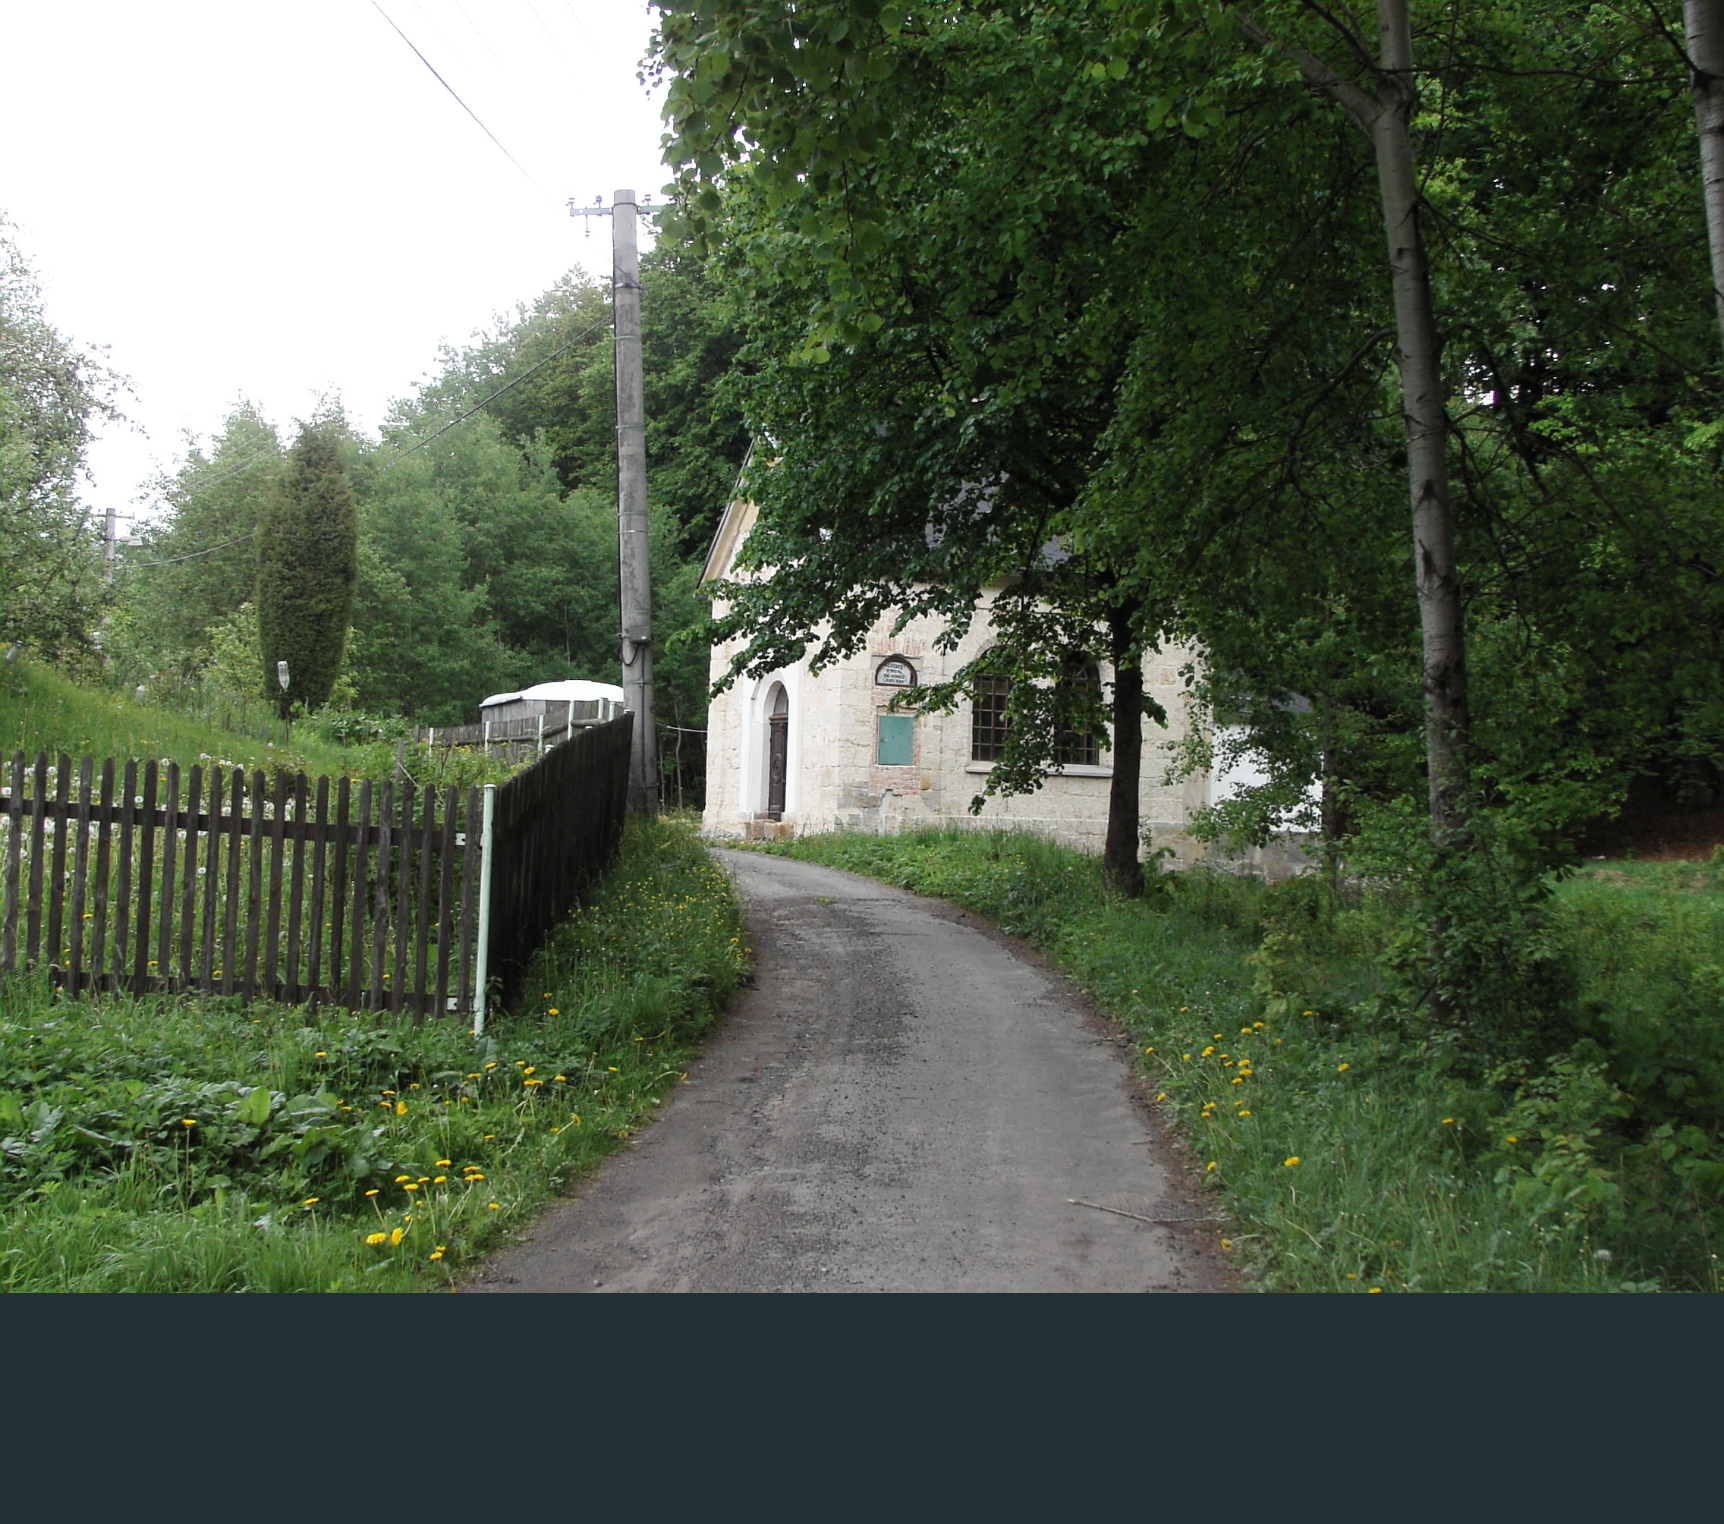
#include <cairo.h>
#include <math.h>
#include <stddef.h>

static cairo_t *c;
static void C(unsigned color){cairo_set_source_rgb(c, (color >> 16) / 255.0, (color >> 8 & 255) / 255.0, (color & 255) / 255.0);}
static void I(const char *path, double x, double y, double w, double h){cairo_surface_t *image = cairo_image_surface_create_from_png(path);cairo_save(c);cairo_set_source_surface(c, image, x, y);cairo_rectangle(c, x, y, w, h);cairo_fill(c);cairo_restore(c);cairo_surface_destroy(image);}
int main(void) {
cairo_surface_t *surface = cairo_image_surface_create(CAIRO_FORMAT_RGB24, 1724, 1524);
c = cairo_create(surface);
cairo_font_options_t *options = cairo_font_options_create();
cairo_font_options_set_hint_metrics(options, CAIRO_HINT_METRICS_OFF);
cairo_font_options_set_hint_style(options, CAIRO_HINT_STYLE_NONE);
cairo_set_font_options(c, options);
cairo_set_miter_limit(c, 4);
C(0x223034);
cairo_paint(c);
I("1.png",0,0,1724,1293);
cairo_surface_write_to_png(surface, "o.png");
cairo_font_options_destroy(options);
cairo_destroy(c);
cairo_surface_destroy(surface);
return 0;
}
